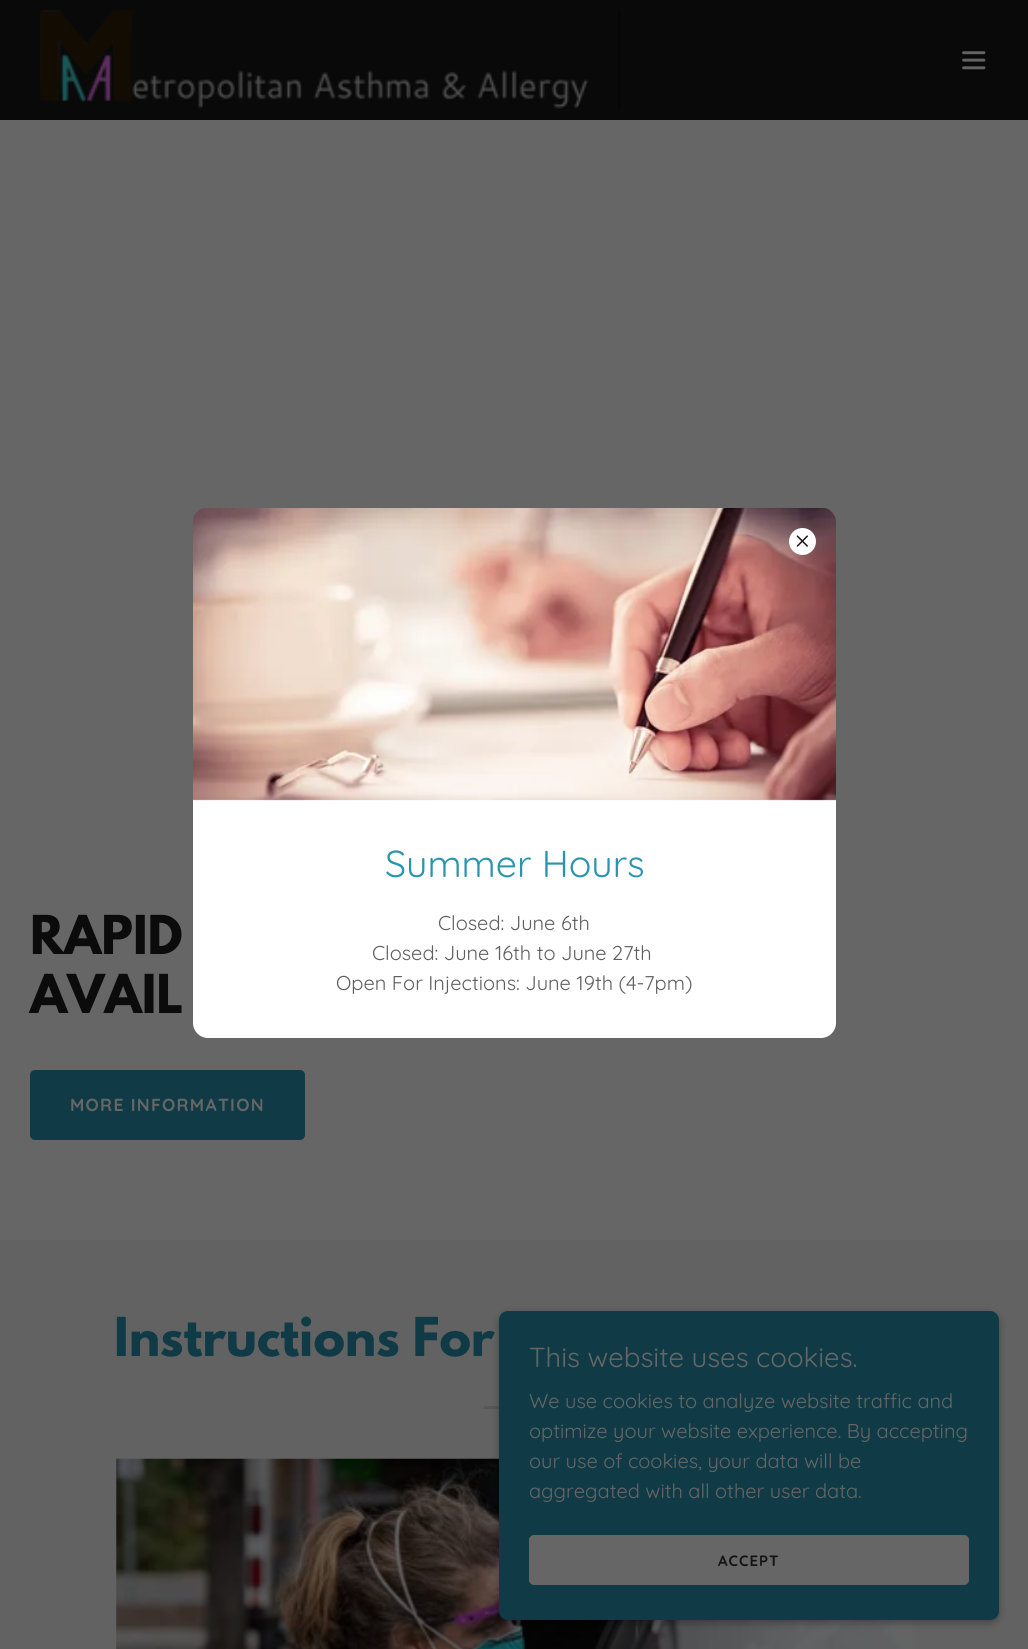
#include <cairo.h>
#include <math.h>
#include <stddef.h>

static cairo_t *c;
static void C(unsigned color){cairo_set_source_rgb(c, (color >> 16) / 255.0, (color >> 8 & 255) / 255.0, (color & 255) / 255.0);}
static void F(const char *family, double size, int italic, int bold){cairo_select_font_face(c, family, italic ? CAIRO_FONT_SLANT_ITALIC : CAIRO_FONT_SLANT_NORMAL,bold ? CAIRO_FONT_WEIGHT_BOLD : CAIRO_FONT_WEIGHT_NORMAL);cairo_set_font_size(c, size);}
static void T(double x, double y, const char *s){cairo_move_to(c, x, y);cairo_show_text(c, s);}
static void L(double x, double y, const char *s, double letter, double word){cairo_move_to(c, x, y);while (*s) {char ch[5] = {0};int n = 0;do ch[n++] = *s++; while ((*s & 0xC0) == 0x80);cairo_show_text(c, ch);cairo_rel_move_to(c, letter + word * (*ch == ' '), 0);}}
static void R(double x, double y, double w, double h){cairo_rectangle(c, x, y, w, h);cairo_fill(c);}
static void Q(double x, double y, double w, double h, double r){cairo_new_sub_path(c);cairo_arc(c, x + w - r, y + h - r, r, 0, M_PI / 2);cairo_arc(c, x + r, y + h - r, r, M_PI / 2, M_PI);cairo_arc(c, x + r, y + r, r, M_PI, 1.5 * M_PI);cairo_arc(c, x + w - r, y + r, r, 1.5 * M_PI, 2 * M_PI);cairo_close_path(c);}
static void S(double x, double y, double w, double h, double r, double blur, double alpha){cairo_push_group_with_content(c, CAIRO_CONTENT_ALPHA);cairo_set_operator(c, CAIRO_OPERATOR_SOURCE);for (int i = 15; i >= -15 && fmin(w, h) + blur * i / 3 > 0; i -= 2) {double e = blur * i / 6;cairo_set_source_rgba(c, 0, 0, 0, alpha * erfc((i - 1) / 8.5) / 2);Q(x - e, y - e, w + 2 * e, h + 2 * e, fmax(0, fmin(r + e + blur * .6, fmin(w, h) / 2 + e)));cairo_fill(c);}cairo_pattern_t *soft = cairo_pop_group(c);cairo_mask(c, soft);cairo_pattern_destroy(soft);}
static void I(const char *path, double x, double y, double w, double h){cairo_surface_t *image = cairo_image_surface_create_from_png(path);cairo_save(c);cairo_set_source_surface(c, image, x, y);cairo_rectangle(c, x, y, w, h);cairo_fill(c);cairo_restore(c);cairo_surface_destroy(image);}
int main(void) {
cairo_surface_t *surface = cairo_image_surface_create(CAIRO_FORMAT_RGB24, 1028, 1649);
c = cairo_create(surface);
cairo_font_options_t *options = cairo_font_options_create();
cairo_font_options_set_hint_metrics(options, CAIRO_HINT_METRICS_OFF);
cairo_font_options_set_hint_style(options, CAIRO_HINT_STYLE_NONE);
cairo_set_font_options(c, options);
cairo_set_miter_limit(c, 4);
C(0x090909);
cairo_paint(c);
I("1.png",40,10,580,100);
I("2.png",962,51,24,19);
C(0x666666);
R(0,120,1028,1120);
F("League Spartan",47.5,0,1);
C(0x0b0b0b);
T(30,954,"RAPID");
T(30,1013,"AVAIL");
C(0x103b46);
Q(30,1070,275,70,5);
cairo_fill(c);
F("Quicksand",17.5,0,1);
C(0x666666);
L(70,1111,"MORE INFORMATION",1.25,0);
C(0xffffff);
Q(193,508,643,530,15);
cairo_fill(c);
I("4.png",193,508,643,293);
cairo_arc(c,802.5,541.5,13.5,0,2 * M_PI);
cairo_fill(c);
I("3.png",796,535,12,12);
F("Quicksand",37.5,0,0);
C(0x2994ae);
T(385,877,"Summer Hours");
F("Quicksand",20,0,0);
C(0x5e5e5e);
T(438,930,"Closed: June 6th");
T(372,960,"Closed: June 16th to June 27th");
T(336,990,"Open For Injections: June 19th (4-7pm)");
C(0x626262);
R(0,1240,1028,409);
F("League Spartan",47.5,0,1);
C(0x103b46);
T(114,1356,"Instructions For");
C(0x575757);
R(484,1406,15,3);
I("5.png",116,1458,797,191);
C(0x000000);
S(499,1314,500,309,9,4,.3);
C(0x103b46);
Q(499,1311,500,309,9);
cairo_fill(c);
F("Quicksand",27.5,0,0);
C(0x666666);
T(529,1367,"This website uses cookies.");
F("Quicksand",20,0,0);
T(529,1408,"We use cookies to analyze website traffic and");
T(529,1438,"optimize your website experience. By accepting");
T(529,1468,"our use of cookies, your data will be");
T(529,1498,"aggregated with all other user data.");
Q(529,1535,440,50,5);
cairo_fill(c);
F("Quicksand",15,0,1);
C(0x131313);
L(718,1566,"ACCEPT",1,0);
cairo_surface_write_to_png(surface, "o.png");
cairo_font_options_destroy(options);
cairo_destroy(c);
cairo_surface_destroy(surface);
return 0;
}
